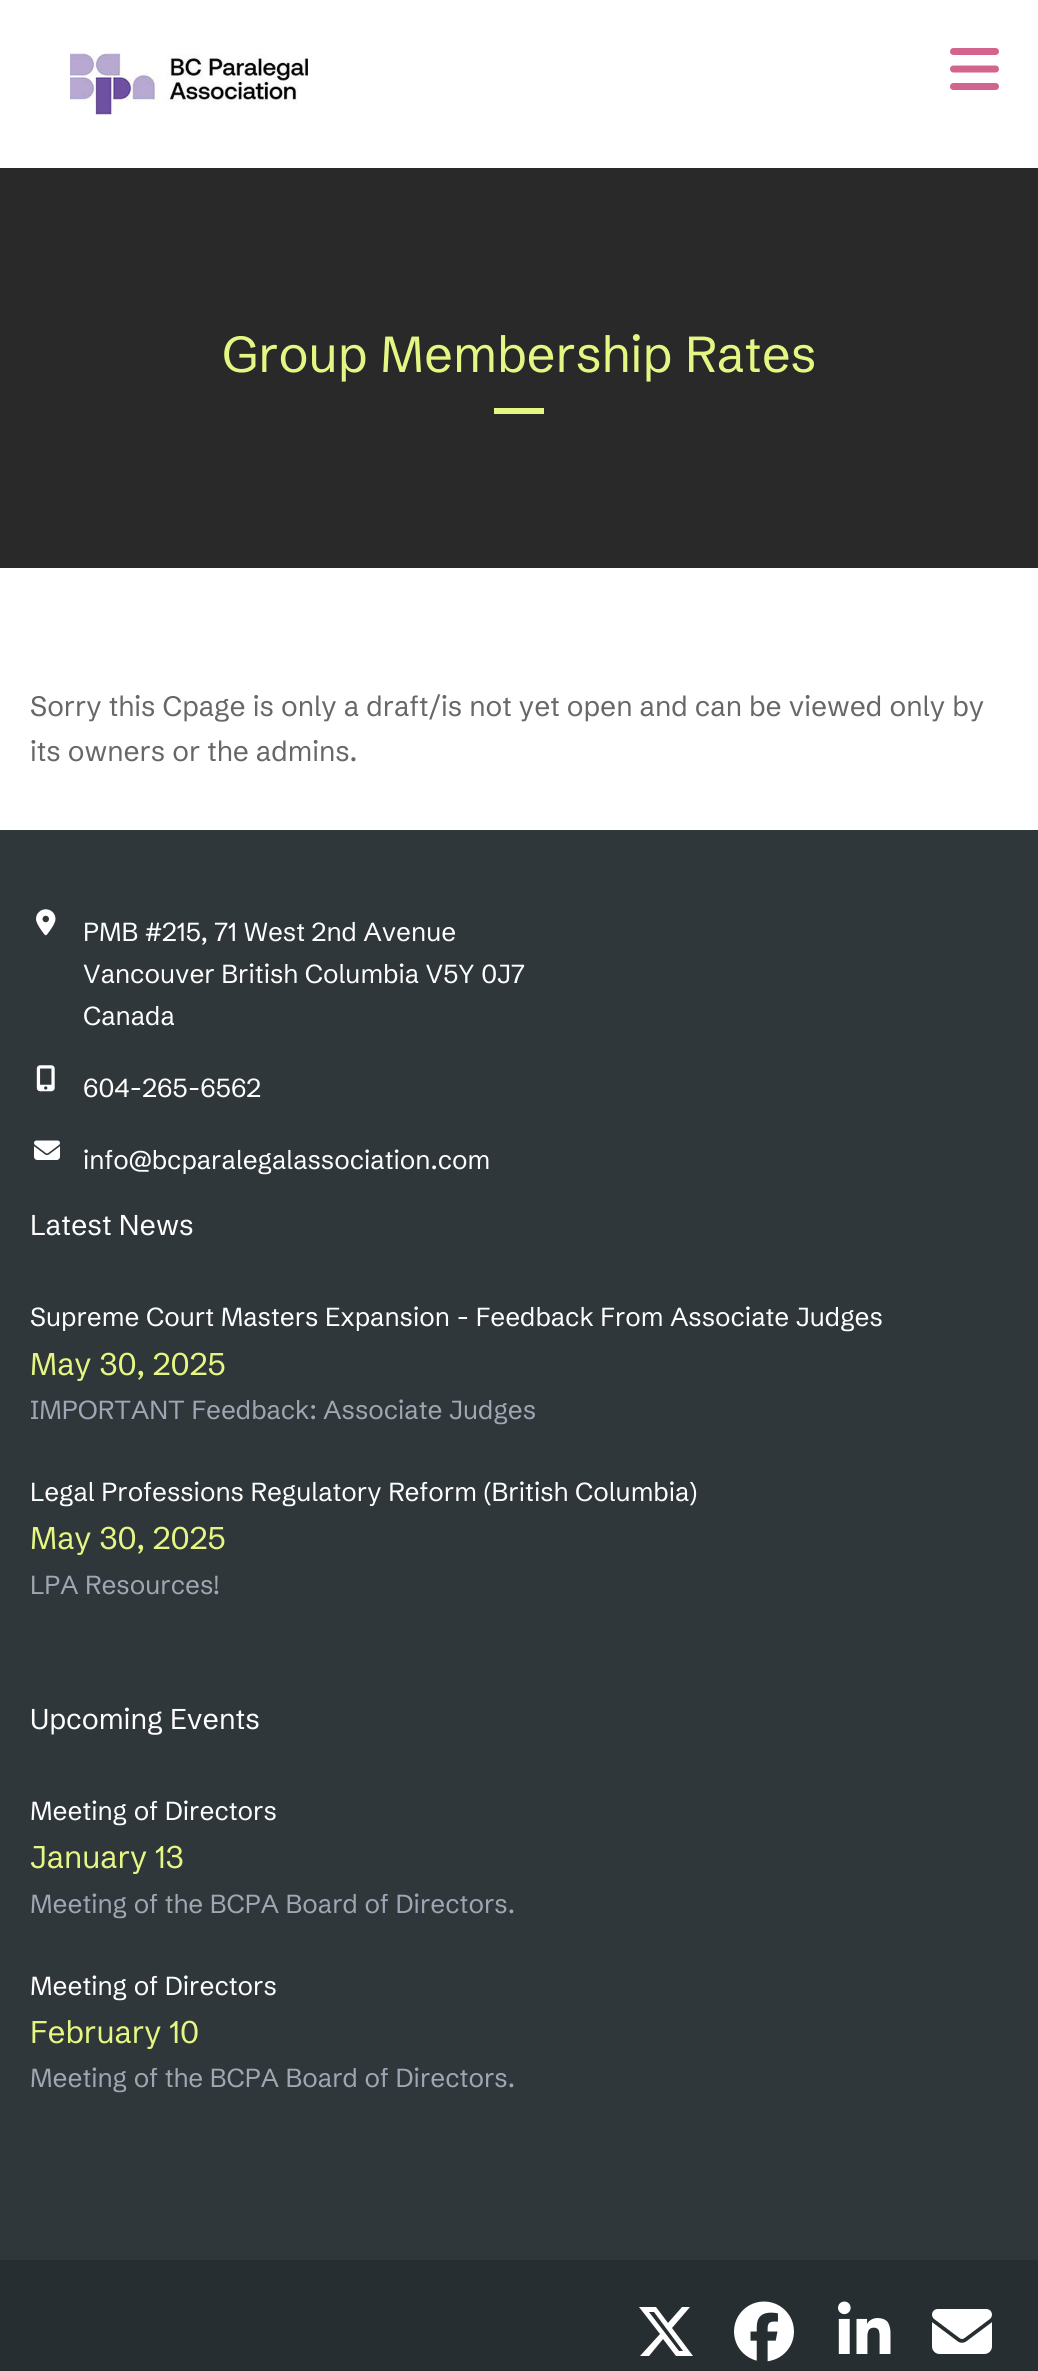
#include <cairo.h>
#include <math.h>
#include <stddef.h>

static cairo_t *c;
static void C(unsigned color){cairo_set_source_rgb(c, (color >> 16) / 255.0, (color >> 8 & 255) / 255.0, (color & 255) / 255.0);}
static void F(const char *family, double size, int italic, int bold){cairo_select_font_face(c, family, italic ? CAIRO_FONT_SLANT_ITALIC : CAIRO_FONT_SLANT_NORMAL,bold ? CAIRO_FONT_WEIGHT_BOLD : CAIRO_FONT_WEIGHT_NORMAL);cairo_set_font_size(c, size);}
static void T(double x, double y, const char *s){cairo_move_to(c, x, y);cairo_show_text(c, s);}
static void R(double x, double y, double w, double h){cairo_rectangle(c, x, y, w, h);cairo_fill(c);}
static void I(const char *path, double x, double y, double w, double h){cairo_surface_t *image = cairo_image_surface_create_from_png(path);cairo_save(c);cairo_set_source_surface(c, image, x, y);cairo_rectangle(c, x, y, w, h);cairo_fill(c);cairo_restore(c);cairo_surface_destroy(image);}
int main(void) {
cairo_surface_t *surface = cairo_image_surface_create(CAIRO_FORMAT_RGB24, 1038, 2371);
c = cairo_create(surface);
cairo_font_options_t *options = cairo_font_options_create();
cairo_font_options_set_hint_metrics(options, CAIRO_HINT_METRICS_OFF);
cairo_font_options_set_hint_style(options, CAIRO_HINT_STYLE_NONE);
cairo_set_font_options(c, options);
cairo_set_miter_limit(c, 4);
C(0xffffff);
cairo_paint(c);
I("1.png",70,53,238,62);
I("2.png",950,48,49,42);
C(0x292929);
R(0,168,1038,400);
F("Schibsted Grotesk",50.4,0,0);
C(0xe5f782);
T(222,372,"Group Membership Rates");
R(494,408,50,6);
F("Schibsted Grotesk",28,0,0);
C(0x676767);
T(30,716,"Sorry this Cpage is only a draft/is not yet open and can be viewed only by");
T(30,761,"its owners or the admins.");
C(0x30373a);
R(0,830,1038,1430);
I("3.png",36,909,20,27);
F("Schibsted Grotesk",26,0,0);
C(0xffffff);
T(83,941,"PMB #215, 71 West 2nd Avenue");
T(83,983,"Vancouver British Columbia V5Y 0J7");
T(83,1025,"Canada");
I("4.png",36,1065,19,27);
T(83,1097,"604-265-6562");
I("5.png",34,1140,26,20);
T(83,1169,"info@bcparalegalassociation.com");
F("Schibsted Grotesk",28.5,0,0);
T(30,1235,"Latest News");
F("Schibsted Grotesk",26,0,0);
T(30,1326,"Supreme Court Masters Expansion - Feedback From Associate Judges");
F("Schibsted Grotesk",31.25,0,0);
C(0xe5f782);
T(30,1375,"May 30, 2025");
F("Schibsted Grotesk",26,0,0);
C(0x9ea7b3);
T(30,1419,"IMPORTANT Feedback: Associate Judges");
C(0xffffff);
T(30,1501,"Legal Professions Regulatory Reform (British Columbia)");
F("Schibsted Grotesk",31.25,0,0);
C(0xe5f782);
T(30,1549,"May 30, 2025");
F("Schibsted Grotesk",26,0,0);
C(0x9ea7b3);
T(30,1594,"LPA Resources!");
F("Schibsted Grotesk",28.5,0,0);
C(0xffffff);
T(30,1729,"Upcoming Events");
F("Schibsted Grotesk",26,0,0);
T(30,1820,"Meeting of Directors");
F("Schibsted Grotesk",31.25,0,0);
C(0xe5f782);
T(30,1868,"January 13");
F("Schibsted Grotesk",26,0,0);
C(0x9ea7b3);
T(30,1913,"Meeting of the BCPA Board of Directors.");
C(0xffffff);
T(30,1995,"Meeting of Directors");
F("Schibsted Grotesk",31.25,0,0);
C(0xe5f782);
T(30,2043,"February 10");
F("Schibsted Grotesk",26,0,0);
C(0x9ea7b3);
T(30,2087,"Meeting of the BCPA Board of Directors.");
C(0x272e31);
R(0,2260,1038,111);
C(0xffffff);
cairo_new_path(c);
cairo_move_to(c,682,2307);
cairo_line_to(c,690,2307);
cairo_line_to(c,682,2307);
cairo_line_to(c,690,2307);
cairo_line_to(c,672,2328);
cairo_line_to(c,693,2356);
cairo_line_to(c,676,2356);
cairo_line_to(c,663,2339);
cairo_line_to(c,649,2356);
cairo_line_to(c,640,2356);
cairo_line_to(c,660,2334);
cairo_line_to(c,639,2307);
cairo_line_to(c,656,2307);
cairo_line_to(c,668,2323);
cairo_close_path(c);
cairo_move_to(c,679,2351);
cairo_line_to(c,683,2351);
cairo_line_to(c,679,2351);
cairo_line_to(c,683,2351);
cairo_line_to(c,654,2312);
cairo_line_to(c,649,2312);
cairo_close_path(c);
cairo_fill(c);
I("6.png",734,2301,60,61);
I("7.png",838,2301,53,53);
I("8.png",932,2309,60,45);
cairo_surface_write_to_png(surface, "o.png");
cairo_font_options_destroy(options);
cairo_destroy(c);
cairo_surface_destroy(surface);
return 0;
}
